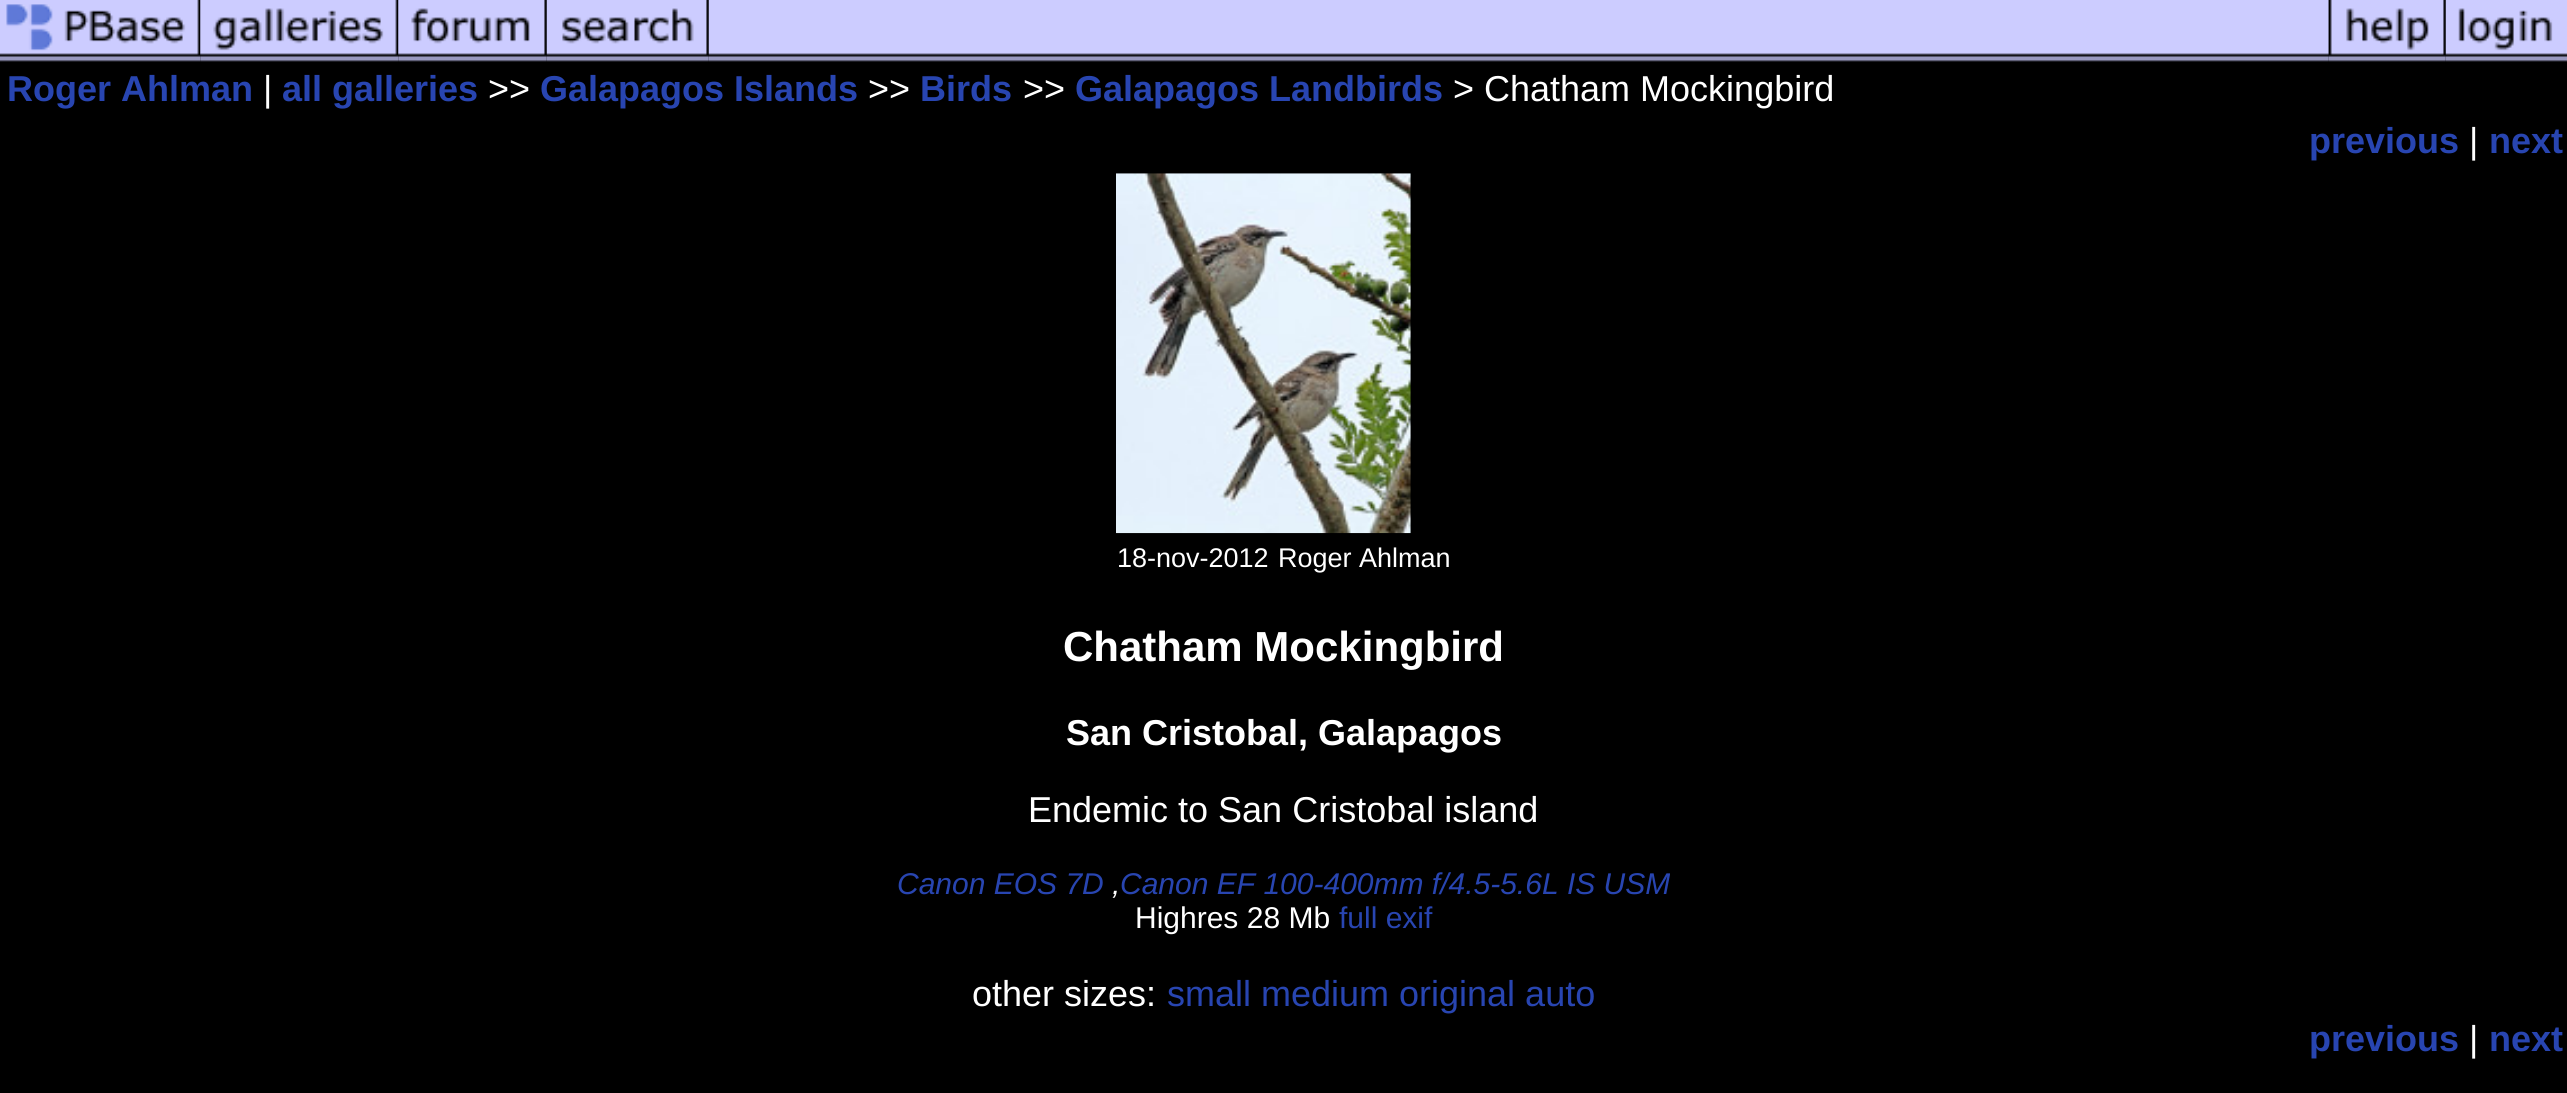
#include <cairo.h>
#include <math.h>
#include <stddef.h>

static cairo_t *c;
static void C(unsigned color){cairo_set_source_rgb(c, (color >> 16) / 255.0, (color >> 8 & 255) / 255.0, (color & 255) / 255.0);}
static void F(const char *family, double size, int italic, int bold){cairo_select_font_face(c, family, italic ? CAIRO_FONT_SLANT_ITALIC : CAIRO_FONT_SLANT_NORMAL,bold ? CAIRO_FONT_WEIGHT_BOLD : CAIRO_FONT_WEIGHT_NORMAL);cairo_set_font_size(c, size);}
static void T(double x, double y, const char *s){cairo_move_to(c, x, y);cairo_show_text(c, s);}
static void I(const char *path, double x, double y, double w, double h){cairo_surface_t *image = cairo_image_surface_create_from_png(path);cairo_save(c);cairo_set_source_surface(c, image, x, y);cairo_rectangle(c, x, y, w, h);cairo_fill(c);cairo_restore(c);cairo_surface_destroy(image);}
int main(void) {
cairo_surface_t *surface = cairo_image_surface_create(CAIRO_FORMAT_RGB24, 2567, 1093);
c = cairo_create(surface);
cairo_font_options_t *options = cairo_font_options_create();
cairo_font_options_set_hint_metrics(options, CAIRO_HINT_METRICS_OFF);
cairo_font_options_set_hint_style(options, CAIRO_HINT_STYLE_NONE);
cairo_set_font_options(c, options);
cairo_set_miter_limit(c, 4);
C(0x000000);
cairo_paint(c);
I("1.png",0,0,201,62);
I("2.png",200,0,199,62);
I("3.png",398,0,149,62);
I("4.png",546,0,163,62);
I("5.png",708,0,1621,62);
I("6.png",2328,0,118,62);
I("7.png",2445,0,122,62);
F("Liberation Sans",36,0,1);
C(0x2845b1);
T(7,101,"Roger Ahlman");
F("Liberation Sans",36,0,0);
C(0xffffff);
T(263,101,"|");
F("Liberation Sans",36,0,1);
C(0x2845b1);
T(282,101,"all galleries");
F("Liberation Sans",36,0,0);
C(0xffffff);
T(488,101,">>");
F("Liberation Sans",36,0,1);
C(0x2845b1);
T(540,101,"Galapagos Islands");
F("Liberation Sans",36,0,0);
C(0xffffff);
T(868,101,">>");
F("Liberation Sans",36,0,1);
C(0x2845b1);
T(920,101,"Birds");
F("Liberation Sans",36,0,0);
C(0xffffff);
T(1023,101,">>");
F("Liberation Sans",36,0,1);
C(0x2845b1);
T(1075,101,"Galapagos Landbirds");
F("Liberation Sans",36,0,0);
C(0xffffff);
T(1453,101,"> Chatham Mockingbird");
F("Liberation Sans",36,0,1);
C(0x2845b1);
T(2309,153,"previous");
F("Liberation Sans",36,0,0);
C(0xffffff);
T(2469,153,"|");
F("Liberation Sans",36,0,1);
C(0x2845b1);
T(2489,153,"next");
I("8.png",1116,173,295,361);
F("Liberation Sans",27,0,0);
C(0xffffff);
T(1117,567,"18-nov-2012");
T(1278,567,"Roger Ahlman");
F("Liberation Sans",42,0,1);
T(1063,661,"Chatham Mockingbird");
F("Liberation Sans",36,0,1);
T(1066,745,"San Cristobal, Galapagos");
F("Liberation Sans",36,0,0);
T(1028,822,"Endemic to San Cristobal island");
F("Liberation Sans",30,1,0);
C(0x2845b1);
T(897,894,"Canon EOS 7D");
C(0xffffff);
T(1112,894,",");
C(0x2845b1);
T(1120,894,"Canon EF 100-400mm f/4.5-5.6L IS USM");
F("Liberation Sans",30,0,0);
C(0xffffff);
T(1135,928,"Highres 28 Mb");
C(0x2845b1);
T(1339,928,"full exif");
F("Liberation Sans",36,0,0);
C(0xffffff);
T(972,1006,"other sizes:");
C(0x2845b1);
T(1167,1006,"small medium original auto");
F("Liberation Sans",36,0,1);
T(2309,1051,"previous");
F("Liberation Sans",36,0,0);
C(0xffffff);
T(2469,1051,"|");
F("Liberation Sans",36,0,1);
C(0x2845b1);
T(2489,1051,"next");
cairo_surface_write_to_png(surface, "o.png");
cairo_font_options_destroy(options);
cairo_destroy(c);
cairo_surface_destroy(surface);
return 0;
}
